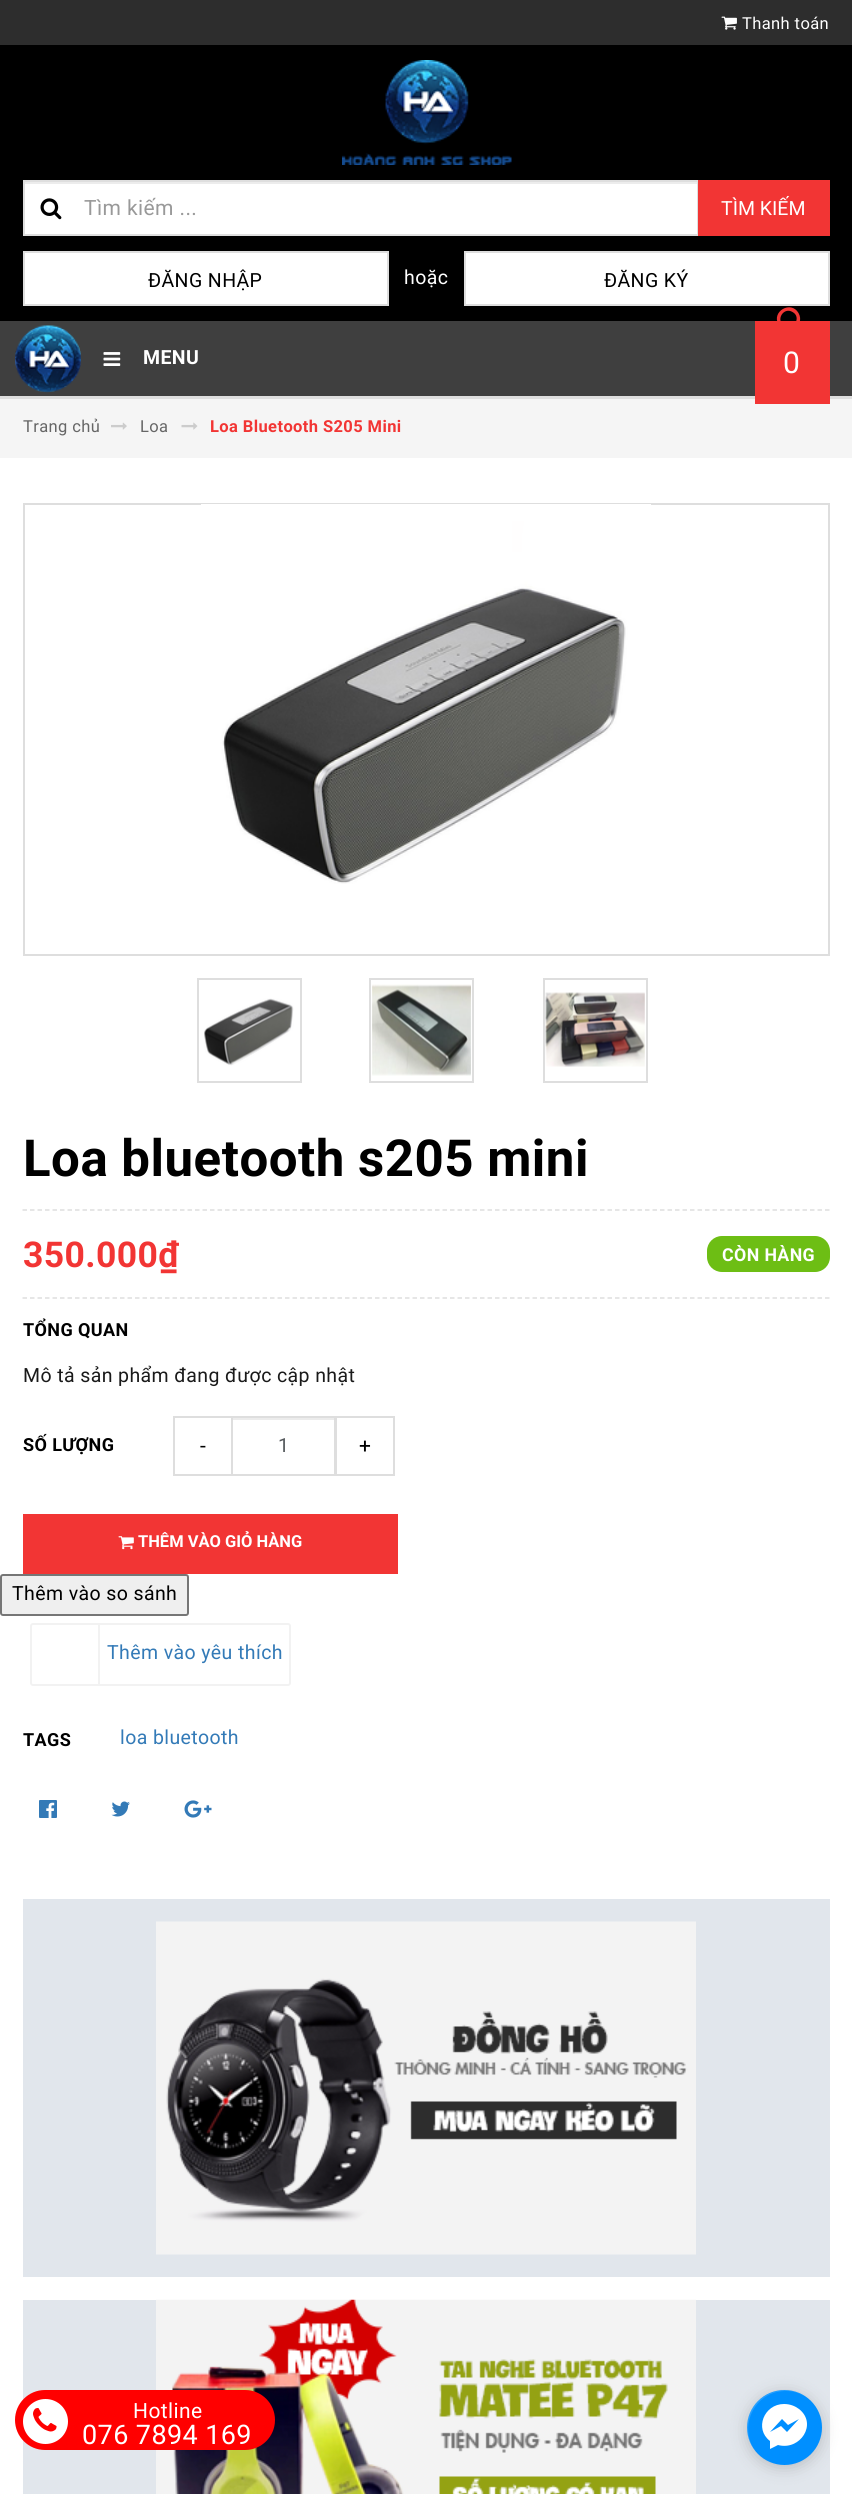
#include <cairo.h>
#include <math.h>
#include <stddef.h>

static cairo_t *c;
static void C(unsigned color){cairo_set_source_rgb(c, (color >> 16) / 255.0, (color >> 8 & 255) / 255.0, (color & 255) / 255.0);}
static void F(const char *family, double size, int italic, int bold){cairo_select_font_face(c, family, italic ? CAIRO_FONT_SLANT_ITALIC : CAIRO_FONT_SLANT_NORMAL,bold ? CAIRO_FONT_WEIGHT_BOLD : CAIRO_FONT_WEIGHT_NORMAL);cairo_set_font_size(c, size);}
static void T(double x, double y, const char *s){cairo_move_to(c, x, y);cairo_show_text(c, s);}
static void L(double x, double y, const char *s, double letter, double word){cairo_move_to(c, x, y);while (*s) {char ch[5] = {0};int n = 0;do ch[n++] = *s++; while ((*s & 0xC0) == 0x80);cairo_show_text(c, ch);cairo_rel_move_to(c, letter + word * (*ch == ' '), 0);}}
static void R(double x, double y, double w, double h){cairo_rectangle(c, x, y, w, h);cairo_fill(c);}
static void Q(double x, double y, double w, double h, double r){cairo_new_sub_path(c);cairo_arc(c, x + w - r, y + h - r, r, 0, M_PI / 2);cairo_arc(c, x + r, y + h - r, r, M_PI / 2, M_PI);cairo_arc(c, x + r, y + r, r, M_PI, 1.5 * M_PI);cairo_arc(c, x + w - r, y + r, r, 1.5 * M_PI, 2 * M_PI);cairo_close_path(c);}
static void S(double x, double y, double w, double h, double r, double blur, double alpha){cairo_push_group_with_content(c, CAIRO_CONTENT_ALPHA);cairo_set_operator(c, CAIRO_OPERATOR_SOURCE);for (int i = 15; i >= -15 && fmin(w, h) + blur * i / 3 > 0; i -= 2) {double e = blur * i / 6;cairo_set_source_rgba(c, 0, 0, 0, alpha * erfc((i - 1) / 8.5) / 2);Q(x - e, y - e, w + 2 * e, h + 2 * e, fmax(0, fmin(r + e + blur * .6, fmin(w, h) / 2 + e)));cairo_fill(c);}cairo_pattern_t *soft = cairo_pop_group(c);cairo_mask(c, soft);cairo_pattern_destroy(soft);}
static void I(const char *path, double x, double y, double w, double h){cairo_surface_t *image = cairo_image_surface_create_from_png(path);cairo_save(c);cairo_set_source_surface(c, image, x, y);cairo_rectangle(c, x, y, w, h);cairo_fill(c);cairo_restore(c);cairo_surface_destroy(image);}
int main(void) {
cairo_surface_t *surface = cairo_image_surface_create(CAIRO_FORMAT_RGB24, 852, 2494);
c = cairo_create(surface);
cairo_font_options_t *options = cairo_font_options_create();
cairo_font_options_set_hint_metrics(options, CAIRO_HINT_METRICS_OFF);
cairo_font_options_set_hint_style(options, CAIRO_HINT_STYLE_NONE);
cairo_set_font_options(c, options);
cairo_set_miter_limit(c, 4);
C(0xffffff);
cairo_paint(c);
C(0x000000);
R(0,45,852,276);
C(0x2d2d2d);
R(0,0,852,45);
I("1.png",721,16,16,14);
F("Roboto",16.5,0,0);
C(0xffffff);
L(742,29,"Thanh toán",.4,0);
I("2.png",342,60,170,105);
R(25,184,672,50);
C(0xececec);
R(24,182,674,2);
cairo_rectangle(c,24,181,674,54);
C(0xdedede);
cairo_stroke(c);
I("3.png",40,198,22,22);
F("Roboto",21,0,0);
C(0x999999);
L(84,215,"Tìm kiếm ...",.4,0);
C(0xf23534);
R(698,180,132,56);
F("Roboto",19.5,0,0);
C(0xffffff);
T(721,215,"TÌM KIẾM");
cairo_rectangle(c,24,252,364,53);
cairo_fill_preserve(c);
C(0xdedede);
cairo_stroke(c);
C(0x000000);
L(148,287,"ĐĂNG NHẬP",.4,0);
C(0xffffff);
L(404,284,"hoặc",.4,0);
cairo_rectangle(c,465,252,364,53);
cairo_fill_preserve(c);
C(0xdedede);
cairo_stroke(c);
C(0x000000);
L(604,287,"ĐĂNG KÝ",.4,0);
C(0xdedede);
R(0,396,852,3);
C(0x3f3f3f);
R(0,321,852,75);
I("4.png",15,325,66,68);
I("5.png",103,352,18,14);
F("Roboto",19.5,0,1);
C(0xffffff);
L(143,364,"MENU",.4,0);
C(0xf5f5f5);
R(0,399,852,59);
C(0xf23534);
R(755,321,75,83);
cairo_new_path(c);
cairo_move_to(c,792.5,312);
cairo_curve_to(c,783.5,306.5,775,320.5,784.5,326);
cairo_curve_to(c,793.5,331.5,802,317,792.5,312);
cairo_close_path(c);
cairo_move_to(c,798.5,313);
cairo_curve_to(c,806,326,786,338,778.5,324.5);
cairo_curve_to(c,771,311.5,791,300,798.5,313);
cairo_close_path(c);
cairo_fill(c);
F("Roboto",30,0,0);
C(0xffffff);
L(783,373,"0",.4,0);
F("Roboto",16.5,0,0);
C(0x666666);
L(23,432,"Trang chủ",.4,0);
I("6.png",111,422,16,8);
L(140,432,"Loa",.4,0);
I("7.png",181,422,17,8);
F("Roboto",16.5,0,1);
C(0xf23534);
L(210,432,"Loa Bluetooth S205 Mini",.4,0);
cairo_rectangle(c,24,504,805,451);
C(0xdedede);
cairo_stroke(c);
I("8.png",201,504,450,380);
cairo_rectangle(c,198,979,103,103);
cairo_stroke(c);
I("9.png",204,998,90,68);
cairo_rectangle(c,370,979,103,103);
cairo_stroke(c);
I("10.png",372,984,99,92);
cairo_rectangle(c,544,979,103,103);
cairo_stroke(c);
I("11.png",545,992,100,75);
F("Roboto",51,0,1);
C(0x000000);
L(23,1176,"Loa bluetooth s205 mini",.5,0);
cairo_new_path(c);
cairo_move_to(c,22.5,1210);
cairo_line_to(c,829.5,1210);
C(0xdedede);
cairo_set_line_width(c,1.5);
cairo_set_dash(c,(double[]){4.5,3},2,0);
cairo_stroke(c);
cairo_new_path(c);
cairo_move_to(c,22.5,1298);
cairo_line_to(c,829.5,1298);
cairo_stroke(c);
F("Roboto",35.5,0,1);
C(0xf23534);
L(23,1267,"350.000₫",.4,0);
C(0x6dbe14);
Q(707,1236,123,36,15);
cairo_fill(c);
F("Roboto",17.75,0,1);
C(0xffffff);
L(722,1261,"CÒN HÀNG",.4,0);
F("Roboto",18,0,1);
C(0x000000);
L(23,1336,"TỔNG QUAN",.4,0);
F("Roboto",19.5,0,0);
C(0x1a1a1a);
L(23,1382,"Mô tả sản phẩm đang được cập nhật",.4,0);
F("Roboto",18,0,1);
C(0x000000);
L(23,1451,"SỐ LƯỢNG",.4,0);
cairo_rectangle(c,174,1417,58,58);
C(0xdedede);
cairo_set_line_width(c,2);
cairo_set_dash(c,NULL,0,0);
cairo_stroke(c);
F("Roboto",21,0,0);
C(0x000000);
T(200,1453,"-");
C(0xececec);
R(233,1418,102,2);
cairo_rectangle(c,232,1417,103,58);
C(0xdedede);
cairo_stroke(c);
F("Roboto",19.5,0,0);
C(0x55595c);
L(278,1452,"1",.4,0);
cairo_rectangle(c,336,1417,58,58);
C(0xdedede);
cairo_stroke(c);
F("Roboto",21,0,0);
C(0x000000);
T(359,1453,"+");
C(0xf23534);
R(23,1514,375,60);
I("12.png",118,1536,16,14);
F("Roboto",16.5,0,1);
C(0xffffff);
T(138,1547,"THÊM VÀO GIỎ HÀNG");
C(0xefefef);
Q(1,1575,187,40,2);
cairo_fill_preserve(c);
C(0x767676);
cairo_stroke(c);
F("Roboto",19.5,0,0);
C(0x000000);
L(12,1600,"Thêm vào so sánh",.4,0);
Q(31,1624,259,61,2);
C(0xf2f2f2);
cairo_stroke(c);
R(98,1625,2,60);
C(0x337ab7);
L(107,1659,"Thêm vào yêu thích",.4,0);
F("Roboto",18,0,1);
C(0x000000);
L(23,1746,"TAGS",.4,0);
F("Roboto",19.5,0,0);
C(0x337ab7);
L(120,1744,"loa bluetooth",.4,0);
I("13.png",39,1800,18,18);
I("14.png",111,1801,19,16);
I("15.png",184,1800,28,18);
C(0xe1e6ec);
R(23,1899,807,378);
I("16.png",156,1921,540,334);
R(23,2300,807,194);
I("17.png",156,2299,540,195);
C(0xff0000);
Q(15,2390,260,60,30);
cairo_fill(c);
C(0xffffff);
cairo_arc(c,45.5,2421.5,22.5,0,2 * M_PI);
cairo_fill(c);
I("18.png",33,2408,24,24);
F("Roboto",21,0,0);
L(133,2418,"Hotline",.4,0);
F("Roboto",27,0,0);
L(82,2444,"076 7894 169",.4,0);
C(0x808080);
S(747,2393,75,75,37.5,8,.4);
C(0x008fff);
cairo_arc(c,784.5,2427.5,37.5,0,2 * M_PI);
cairo_fill(c);
cairo_set_source_rgba(c,1,1,1,0.15);
cairo_new_path(c);
cairo_move_to(c,786,2391);
cairo_curve_to(c,793,2391,799,2393,804,2396);
cairo_curve_to(c,788,2385,765,2390,753,2407);
cairo_curve_to(c,742,2423,746,2446,762,2458);
cairo_curve_to(c,735,2436,750,2391,786,2391);
cairo_close_path(c);
cairo_fill(c);
C(0xffffff);
cairo_new_path(c);
cairo_move_to(c,784,2404);
cairo_curve_to(c,764,2404,754,2429,770,2441);
cairo_line_to(c,770,2449);
cairo_line_to(c,778,2445);
cairo_curve_to(c,800,2451,818,2424,799,2409);
cairo_curve_to(c,795,2406,790,2404,784,2404);
cairo_close_path(c);
cairo_move_to(c,787,2432);
cairo_line_to(c,781,2426);
cairo_line_to(c,770,2432);
cairo_line_to(c,782,2419);
cairo_line_to(c,788,2425);
cairo_line_to(c,799,2419);
cairo_close_path(c);
cairo_fill(c);
cairo_surface_write_to_png(surface, "o.png");
cairo_font_options_destroy(options);
cairo_destroy(c);
cairo_surface_destroy(surface);
return 0;
}
